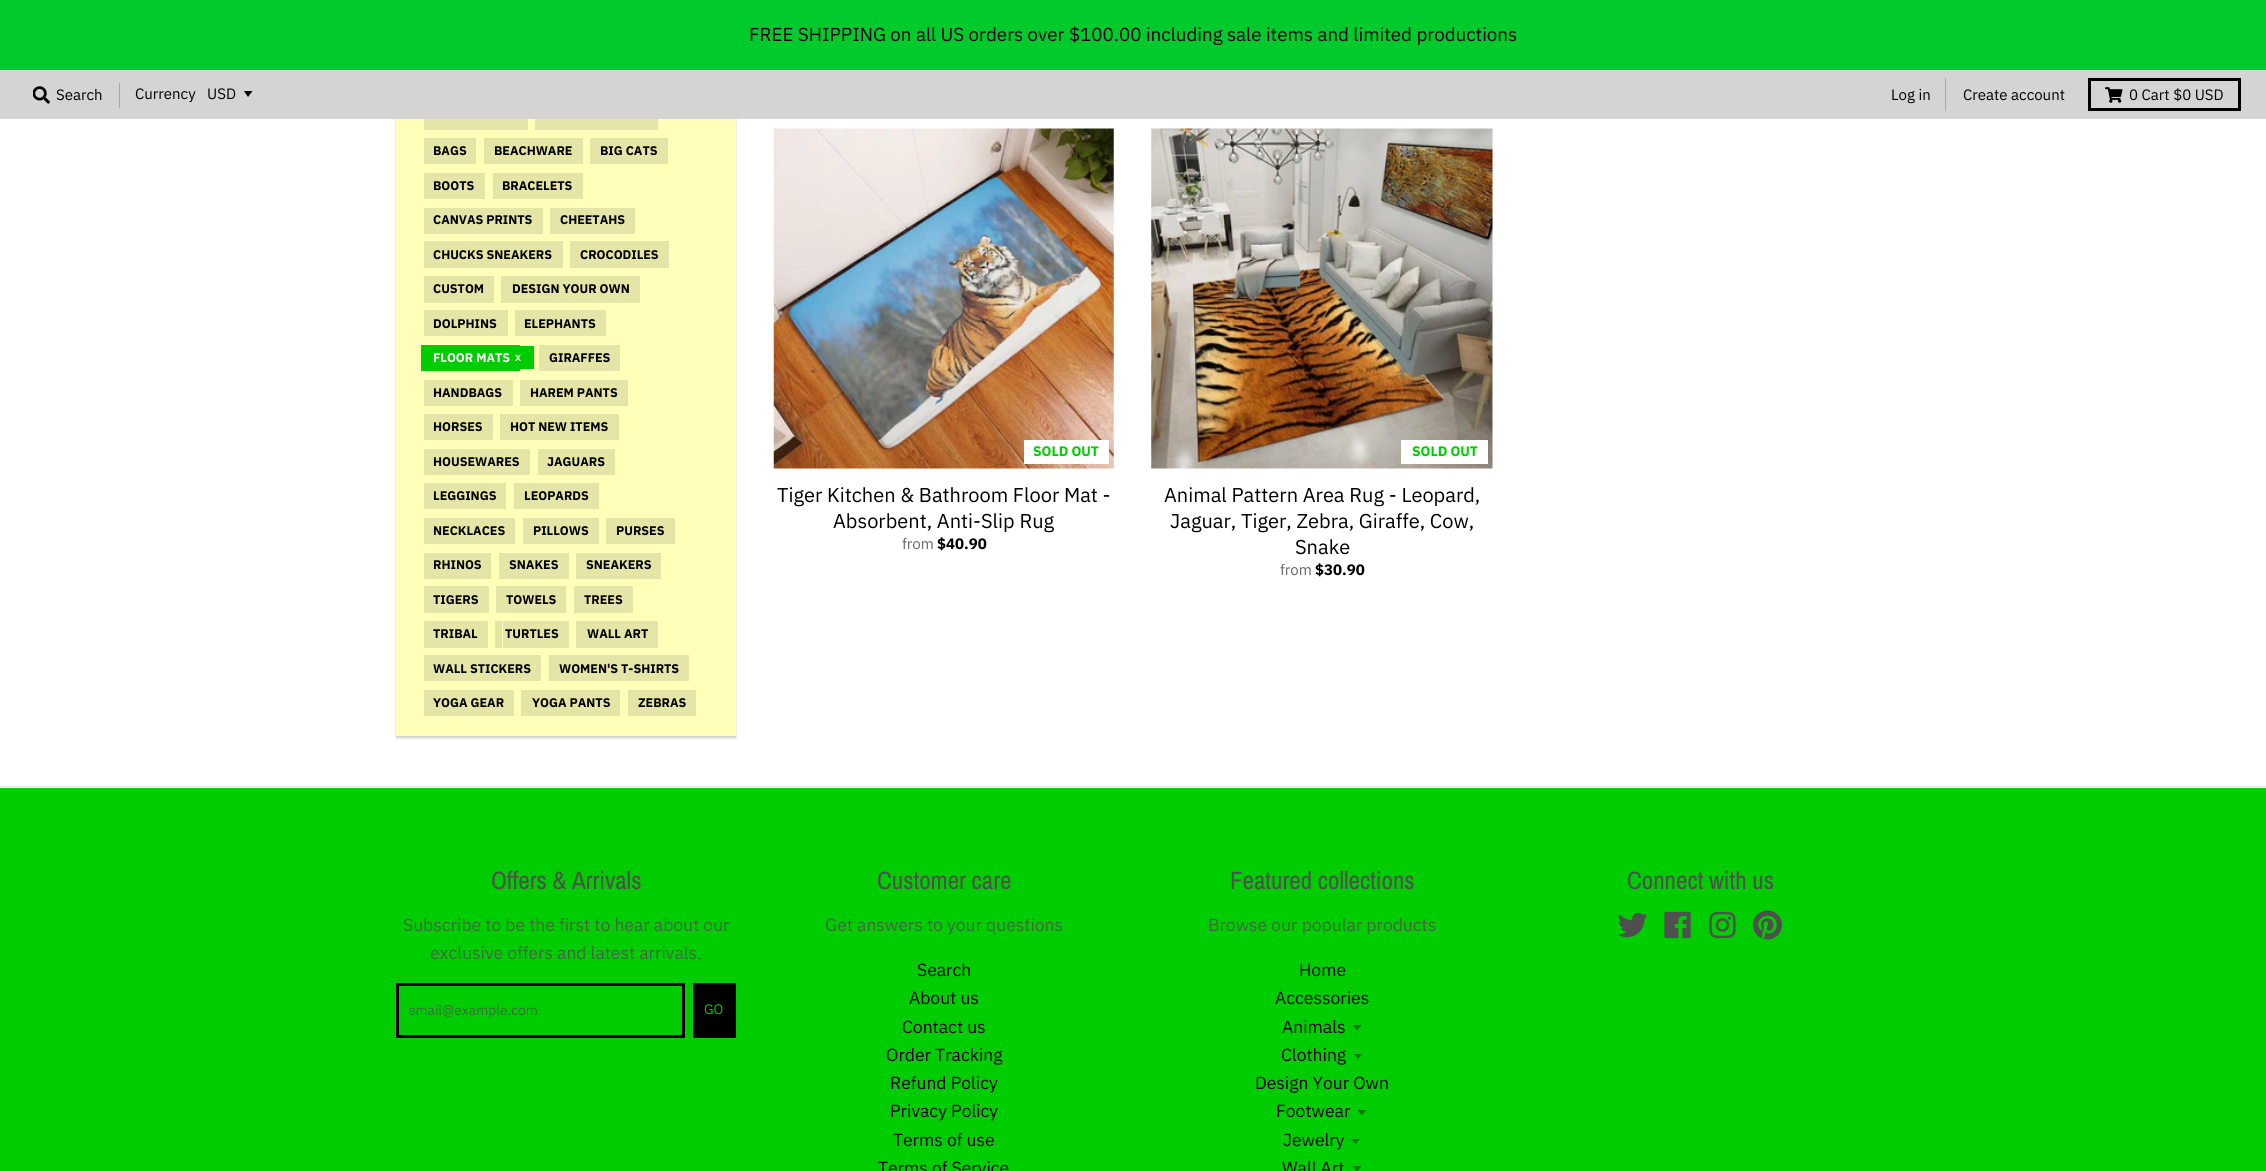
#include <cairo.h>
#include <math.h>
#include <stddef.h>

static cairo_t *c;
static void C(unsigned color){cairo_set_source_rgb(c, (color >> 16) / 255.0, (color >> 8 & 255) / 255.0, (color & 255) / 255.0);}
static void F(const char *family, double size, int italic, int bold){cairo_select_font_face(c, family, italic ? CAIRO_FONT_SLANT_ITALIC : CAIRO_FONT_SLANT_NORMAL,bold ? CAIRO_FONT_WEIGHT_BOLD : CAIRO_FONT_WEIGHT_NORMAL);cairo_set_font_size(c, size);}
static void T(double x, double y, const char *s){cairo_move_to(c, x, y);cairo_show_text(c, s);}
static void R(double x, double y, double w, double h){cairo_rectangle(c, x, y, w, h);cairo_fill(c);}
static void Q(double x, double y, double w, double h, double r){cairo_new_sub_path(c);cairo_arc(c, x + w - r, y + h - r, r, 0, M_PI / 2);cairo_arc(c, x + r, y + h - r, r, M_PI / 2, M_PI);cairo_arc(c, x + r, y + r, r, M_PI, 1.5 * M_PI);cairo_arc(c, x + w - r, y + r, r, 1.5 * M_PI, 2 * M_PI);cairo_close_path(c);}
static void S(double x, double y, double w, double h, double r, double blur, double alpha){cairo_push_group_with_content(c, CAIRO_CONTENT_ALPHA);cairo_set_operator(c, CAIRO_OPERATOR_SOURCE);for (int i = 15; i >= -15 && fmin(w, h) + blur * i / 3 > 0; i -= 2) {double e = blur * i / 6;cairo_set_source_rgba(c, 0, 0, 0, alpha * erfc((i - 1) / 8.5) / 2);Q(x - e, y - e, w + 2 * e, h + 2 * e, fmax(0, fmin(r + e + blur * .6, fmin(w, h) / 2 + e)));cairo_fill(c);}cairo_pattern_t *soft = cairo_pop_group(c);cairo_mask(c, soft);cairo_pattern_destroy(soft);}
static void I(const char *path, double x, double y, double w, double h){cairo_surface_t *image = cairo_image_surface_create_from_png(path);cairo_save(c);cairo_set_source_surface(c, image, x, y);cairo_rectangle(c, x, y, w, h);cairo_fill(c);cairo_restore(c);cairo_surface_destroy(image);}
int main(void) {
cairo_surface_t *surface = cairo_image_surface_create(CAIRO_FORMAT_RGB24, 2266, 1171);
c = cairo_create(surface);
cairo_font_options_t *options = cairo_font_options_create();
cairo_font_options_set_hint_metrics(options, CAIRO_HINT_METRICS_OFF);
cairo_font_options_set_hint_style(options, CAIRO_HINT_STYLE_NONE);
cairo_set_font_options(c, options);
cairo_set_miter_limit(c, 4);
C(0xffffff);
cairo_paint(c);
C(0x000000);
S(396,31,340,707,0,1,.2);
C(0x00ca2c);
R(0,0,2266,70);
F("IBM Plex Sans",18.75,0,0);
C(0x000000);
T(749,41,"FREE SHIPPING on all US orders over $100.00 including sale items and limited productions");
C(0xd4d4d4);
R(0,70,2266,49);
I("1.png",33,86,17,18);
F("IBM Plex Sans",15,0,0);
C(0x000000);
T(56,100,"Search");
C(0xa9a9a9);
R(119,83,1,25);
C(0x000000);
T(135,99,"Currency");
cairo_new_path(c);
cairo_move_to(c,244,91);
cairo_line_to(c,248,97);
cairo_line_to(c,252.5,91);
cairo_close_path(c);
cairo_fill(c);
T(207,99,"USD");
C(0xa9a9a9);
R(1945,78,1,33);
C(0x000000);
T(1891,100,"Log in");
T(1963,100,"Create account");
cairo_rectangle(c,2089.5,79.5,150,30);
cairo_set_line_width(c,3);
cairo_stroke(c);
I("2.png",2105,87,18,16);
T(2129,100,"0 Cart $0 USD");
C(0xe5e5e5);
R(0,786,2266,1);
C(0xffffba);
R(396,119,340,617);
C(0xe5e5a7);
R(424,119,7,11);
R(431,119,97,11);
R(535,119,8,11);
R(543,119,115,11);
cairo_new_path(c);
cairo_move_to(c,424,138);
cairo_line_to(c,424,164);
cairo_line_to(c,461,164);
cairo_line_to(c,431,164);
cairo_line_to(c,431,138);
cairo_close_path(c);
cairo_move_to(c,439,164);
cairo_line_to(c,476,164);
cairo_line_to(c,476,138);
cairo_line_to(c,469,138);
cairo_line_to(c,469,164);
cairo_close_path(c);
cairo_fill(c);
R(431,138,38,26);
F("IBM Plex Sans",12.5,0,1);
C(0x000000);
T(433,155,"BAGS");
C(0xe5e5a7);
R(491,138,84,26);
C(0x000000);
T(494,155,"BEACHWARE");
C(0xe5e5a7);
cairo_new_path(c);
cairo_move_to(c,484,138);
cairo_line_to(c,484,164);
cairo_line_to(c,568,164);
cairo_line_to(c,491,164);
cairo_line_to(c,491,138);
cairo_close_path(c);
cairo_fill(c);
cairo_new_path(c);
cairo_move_to(c,499,164);
cairo_line_to(c,583,164);
cairo_line_to(c,583,138);
cairo_line_to(c,575,138);
cairo_line_to(c,575,164);
cairo_close_path(c);
cairo_fill(c);
R(598,138,62,26);
C(0x000000);
T(600,155,"BIG CATS");
C(0xe5e5a7);
cairo_new_path(c);
cairo_move_to(c,590,138);
cairo_line_to(c,590,164);
cairo_line_to(c,653,164);
cairo_line_to(c,598,164);
cairo_line_to(c,598,138);
cairo_close_path(c);
cairo_fill(c);
cairo_new_path(c);
cairo_move_to(c,605,164);
cairo_line_to(c,668,164);
cairo_line_to(c,668,138);
cairo_line_to(c,660,138);
cairo_line_to(c,660,164);
cairo_close_path(c);
cairo_fill(c);
cairo_new_path(c);
cairo_move_to(c,424,173);
cairo_line_to(c,424,199);
cairo_line_to(c,470,199);
cairo_line_to(c,431,199);
cairo_line_to(c,431,173);
cairo_close_path(c);
cairo_move_to(c,439,199);
cairo_line_to(c,485,199);
cairo_line_to(c,485,173);
cairo_line_to(c,478,173);
cairo_line_to(c,478,199);
cairo_close_path(c);
cairo_fill(c);
R(431,173,47,26);
C(0x000000);
T(433,190,"BOOTS");
C(0xe5e5a7);
R(500,173,75,26);
C(0x000000);
T(502,190,"BRACELETS");
C(0xe5e5a7);
cairo_new_path(c);
cairo_move_to(c,493,173);
cairo_line_to(c,493,199);
cairo_line_to(c,568,199);
cairo_line_to(c,500,199);
cairo_line_to(c,500,173);
cairo_close_path(c);
cairo_fill(c);
cairo_new_path(c);
cairo_move_to(c,508,199);
cairo_line_to(c,583,199);
cairo_line_to(c,583,173);
cairo_line_to(c,575,173);
cairo_line_to(c,575,199);
cairo_close_path(c);
cairo_fill(c);
R(431,208,104,26);
C(0x000000);
T(433,224,"CANVAS PRINTS");
C(0xe5e5a7);
cairo_new_path(c);
cairo_move_to(c,424,208);
cairo_line_to(c,424,234);
cairo_line_to(c,528,234);
cairo_line_to(c,431,234);
cairo_line_to(c,431,208);
cairo_close_path(c);
cairo_fill(c);
cairo_new_path(c);
cairo_move_to(c,439,234);
cairo_line_to(c,543,234);
cairo_line_to(c,543,208);
cairo_line_to(c,535,208);
cairo_line_to(c,535,234);
cairo_close_path(c);
cairo_fill(c);
R(558,208,70,26);
C(0x000000);
T(560,224,"CHEETAHS");
C(0xe5e5a7);
cairo_new_path(c);
cairo_move_to(c,550,208);
cairo_line_to(c,550,234);
cairo_line_to(c,620,234);
cairo_line_to(c,558,234);
cairo_line_to(c,558,208);
cairo_close_path(c);
cairo_fill(c);
cairo_new_path(c);
cairo_move_to(c,565,234);
cairo_line_to(c,635,234);
cairo_line_to(c,635,208);
cairo_line_to(c,628,208);
cairo_line_to(c,628,234);
cairo_close_path(c);
cairo_fill(c);
R(431,241,124,27);
C(0x000000);
T(433,259,"CHUCKS SNEAKERS");
C(0xe5e5a7);
cairo_new_path(c);
cairo_move_to(c,424,241);
cairo_line_to(c,424,268);
cairo_line_to(c,548,268);
cairo_line_to(c,431,268);
cairo_line_to(c,431,241);
cairo_line_to(c,548,241);
cairo_close_path(c);
cairo_fill(c);
cairo_new_path(c);
cairo_move_to(c,439,241);
cairo_line_to(c,555,241);
cairo_line_to(c,555,268);
cairo_line_to(c,439,268);
cairo_line_to(c,563,268);
cairo_line_to(c,563,241);
cairo_close_path(c);
cairo_fill(c);
R(578,241,83,27);
C(0x000000);
T(580,259,"CROCODILES");
C(0xe5e5a7);
cairo_new_path(c);
cairo_move_to(c,570,241);
cairo_line_to(c,570,268);
cairo_line_to(c,654,268);
cairo_line_to(c,578,268);
cairo_line_to(c,578,241);
cairo_line_to(c,654,241);
cairo_close_path(c);
cairo_fill(c);
cairo_new_path(c);
cairo_move_to(c,585,241);
cairo_line_to(c,661,241);
cairo_line_to(c,661,268);
cairo_line_to(c,585,268);
cairo_line_to(c,669,268);
cairo_line_to(c,669,241);
cairo_close_path(c);
cairo_fill(c);
cairo_new_path(c);
cairo_move_to(c,424,276);
cairo_line_to(c,424,303);
cairo_line_to(c,479,303);
cairo_line_to(c,479,302);
cairo_line_to(c,431,302);
cairo_line_to(c,431,276);
cairo_line_to(c,479,276);
cairo_close_path(c);
cairo_fill(c);
cairo_new_path(c);
cairo_move_to(c,439,276);
cairo_line_to(c,486,276);
cairo_line_to(c,486,302);
cairo_line_to(c,439,302);
cairo_line_to(c,439,303);
cairo_line_to(c,494,303);
cairo_line_to(c,494,276);
cairo_close_path(c);
cairo_fill(c);
R(431,276,55,26);
C(0x000000);
T(433,293,"CUSTOM");
C(0xe5e5a7);
cairo_new_path(c);
cairo_move_to(c,501,276);
cairo_line_to(c,501,303);
cairo_line_to(c,625,303);
cairo_line_to(c,625,302);
cairo_line_to(c,509,302);
cairo_line_to(c,509,276);
cairo_line_to(c,625,276);
cairo_close_path(c);
cairo_fill(c);
cairo_new_path(c);
cairo_move_to(c,516,276);
cairo_line_to(c,632,276);
cairo_line_to(c,632,302);
cairo_line_to(c,516,302);
cairo_line_to(c,516,303);
cairo_line_to(c,640,303);
cairo_line_to(c,640,276);
cairo_close_path(c);
cairo_fill(c);
R(509,276,123,26);
C(0x000000);
T(512,293,"DESIGN YOUR OWN");
C(0xe5e5a7);
R(431,310,77,26);
C(0x000000);
T(433,328,"DOLPHINS");
C(0xe5e5a7);
R(424,310,7,26);
R(523,310,83,26);
C(0x000000);
T(524,328,"ELEPHANTS");
C(0xe5e5a7);
R(515,310,8,26);
C(0x00cd00);
R(431,345,89,26);
C(0xffffff);
T(433,362,"FLOOR MATS");
C(0x00cd00);
R(421,345,10,26);
R(520,346,4,23);
F("IBM Plex Sans",9,0,1);
C(0xffffff);
T(515,361,"X");
C(0x00cd00);
cairo_new_path(c);
cairo_move_to(c,520,346);
cairo_line_to(c,524,346);
cairo_line_to(c,524,369);
cairo_line_to(c,520,369);
cairo_line_to(c,534,369);
cairo_line_to(c,534,346);
cairo_close_path(c);
cairo_fill(c);
C(0xe5e5a7);
R(546,345,74,26);
F("IBM Plex Sans",12.5,0,1);
C(0x000000);
T(549,362,"GIRAFFES");
C(0xe5e5a7);
R(539,345,7,26);
R(431,380,82,26);
C(0x000000);
T(433,397,"HANDBAGS");
C(0xe5e5a7);
R(424,380,7,26);
R(528,380,100,26);
C(0x000000);
T(530,397,"HAREM PANTS");
C(0xe5e5a7);
R(520,380,8,26);
R(431,414,62,26);
C(0x000000);
T(433,431,"HORSES");
C(0xe5e5a7);
R(424,414,7,26);
R(508,414,111,26);
C(0x000000);
T(510,431,"HOT NEW ITEMS");
C(0xe5e5a7);
R(500,414,8,26);
R(431,449,99,26);
C(0x000000);
T(433,466,"HOUSEWARES");
C(0xe5e5a7);
R(424,449,7,26);
R(545,449,70,26);
C(0x000000);
T(547,466,"JAGUARS");
C(0xe5e5a7);
R(538,449,7,26);
R(431,483,68,26);
C(0x000000);
T(433,500,"LEGGINGS");
C(0xe5e5a7);
cairo_new_path(c);
cairo_move_to(c,424,483);
cairo_line_to(c,424,509);
cairo_line_to(c,491,509);
cairo_line_to(c,431,509);
cairo_line_to(c,431,483);
cairo_close_path(c);
cairo_fill(c);
cairo_new_path(c);
cairo_move_to(c,439,509);
cairo_line_to(c,506,509);
cairo_line_to(c,506,483);
cairo_line_to(c,499,483);
cairo_line_to(c,499,509);
cairo_close_path(c);
cairo_fill(c);
R(521,483,70,26);
C(0x000000);
T(524,500,"LEOPARDS");
C(0xe5e5a7);
cairo_new_path(c);
cairo_move_to(c,514,483);
cairo_line_to(c,514,509);
cairo_line_to(c,584,509);
cairo_line_to(c,521,509);
cairo_line_to(c,521,483);
cairo_close_path(c);
cairo_fill(c);
cairo_new_path(c);
cairo_move_to(c,529,509);
cairo_line_to(c,599,509);
cairo_line_to(c,599,483);
cairo_line_to(c,591,483);
cairo_line_to(c,591,509);
cairo_close_path(c);
cairo_fill(c);
R(431,518,77,26);
C(0x000000);
T(433,535,"NECKLACES");
C(0xe5e5a7);
cairo_new_path(c);
cairo_move_to(c,424,518);
cairo_line_to(c,424,544);
cairo_line_to(c,500,544);
cairo_line_to(c,431,544);
cairo_line_to(c,431,518);
cairo_close_path(c);
cairo_fill(c);
cairo_new_path(c);
cairo_move_to(c,439,544);
cairo_line_to(c,515,544);
cairo_line_to(c,515,518);
cairo_line_to(c,508,518);
cairo_line_to(c,508,544);
cairo_close_path(c);
cairo_fill(c);
R(530,518,61,26);
C(0x000000);
T(533,535,"PILLOWS");
C(0xe5e5a7);
cairo_new_path(c);
cairo_move_to(c,523,518);
cairo_line_to(c,523,544);
cairo_line_to(c,584,544);
cairo_line_to(c,530,544);
cairo_line_to(c,530,518);
cairo_close_path(c);
cairo_fill(c);
cairo_new_path(c);
cairo_move_to(c,538,544);
cairo_line_to(c,599,544);
cairo_line_to(c,599,518);
cairo_line_to(c,591,518);
cairo_line_to(c,591,544);
cairo_close_path(c);
cairo_fill(c);
R(614,518,54,26);
C(0x000000);
T(616,535,"PURSES");
C(0xe5e5a7);
cairo_new_path(c);
cairo_move_to(c,606,518);
cairo_line_to(c,606,544);
cairo_line_to(c,660,544);
cairo_line_to(c,614,544);
cairo_line_to(c,614,518);
cairo_close_path(c);
cairo_fill(c);
cairo_new_path(c);
cairo_move_to(c,621,544);
cairo_line_to(c,675,544);
cairo_line_to(c,675,518);
cairo_line_to(c,668,518);
cairo_line_to(c,668,544);
cairo_close_path(c);
cairo_fill(c);
R(431,553,53,26);
C(0x000000);
T(433,569,"RHINOS");
C(0xe5e5a7);
cairo_new_path(c);
cairo_move_to(c,424,553);
cairo_line_to(c,424,579);
cairo_line_to(c,476,579);
cairo_line_to(c,431,579);
cairo_line_to(c,431,553);
cairo_close_path(c);
cairo_fill(c);
cairo_new_path(c);
cairo_move_to(c,439,579);
cairo_line_to(c,491,579);
cairo_line_to(c,491,553);
cairo_line_to(c,484,553);
cairo_line_to(c,484,579);
cairo_close_path(c);
cairo_fill(c);
R(506,553,55,26);
C(0x000000);
T(509,569,"SNAKES");
C(0xe5e5a7);
cairo_new_path(c);
cairo_move_to(c,499,553);
cairo_line_to(c,499,579);
cairo_line_to(c,554,579);
cairo_line_to(c,506,579);
cairo_line_to(c,506,553);
cairo_close_path(c);
cairo_fill(c);
cairo_new_path(c);
cairo_move_to(c,514,579);
cairo_line_to(c,569,579);
cairo_line_to(c,569,553);
cairo_line_to(c,561,553);
cairo_line_to(c,561,579);
cairo_close_path(c);
cairo_fill(c);
R(584,553,70,26);
C(0x000000);
T(586,569,"SNEAKERS");
C(0xe5e5a7);
cairo_new_path(c);
cairo_move_to(c,576,553);
cairo_line_to(c,576,579);
cairo_line_to(c,646,579);
cairo_line_to(c,584,579);
cairo_line_to(c,584,553);
cairo_close_path(c);
cairo_fill(c);
cairo_new_path(c);
cairo_move_to(c,591,579);
cairo_line_to(c,661,579);
cairo_line_to(c,661,553);
cairo_line_to(c,654,553);
cairo_line_to(c,654,579);
cairo_close_path(c);
cairo_fill(c);
cairo_new_path(c);
cairo_move_to(c,424,586);
cairo_line_to(c,424,613);
cairo_line_to(c,474,613);
cairo_line_to(c,474,612);
cairo_line_to(c,431,612);
cairo_line_to(c,431,586);
cairo_line_to(c,474,586);
cairo_close_path(c);
cairo_fill(c);
cairo_new_path(c);
cairo_move_to(c,439,586);
cairo_line_to(c,481,586);
cairo_line_to(c,481,612);
cairo_line_to(c,439,612);
cairo_line_to(c,439,613);
cairo_line_to(c,489,613);
cairo_line_to(c,489,586);
cairo_close_path(c);
cairo_fill(c);
R(431,586,50,26);
C(0x000000);
T(433,604,"TIGERS");
C(0xe5e5a7);
cairo_new_path(c);
cairo_move_to(c,496,586);
cairo_line_to(c,496,613);
cairo_line_to(c,551,613);
cairo_line_to(c,551,612);
cairo_line_to(c,504,612);
cairo_line_to(c,504,586);
cairo_line_to(c,551,586);
cairo_close_path(c);
cairo_fill(c);
cairo_new_path(c);
cairo_move_to(c,511,586);
cairo_line_to(c,559,586);
cairo_line_to(c,559,612);
cairo_line_to(c,511,612);
cairo_line_to(c,511,613);
cairo_line_to(c,566,613);
cairo_line_to(c,566,586);
cairo_close_path(c);
cairo_fill(c);
R(504,586,55,26);
C(0x000000);
T(506,604,"TOWELS");
C(0xe5e5a7);
cairo_new_path(c);
cairo_move_to(c,574,586);
cairo_line_to(c,574,613);
cairo_line_to(c,618,613);
cairo_line_to(c,618,612);
cairo_line_to(c,581,612);
cairo_line_to(c,581,586);
cairo_line_to(c,618,586);
cairo_close_path(c);
cairo_fill(c);
cairo_new_path(c);
cairo_move_to(c,589,586);
cairo_line_to(c,625,586);
cairo_line_to(c,625,612);
cairo_line_to(c,589,612);
cairo_line_to(c,589,613);
cairo_line_to(c,633,613);
cairo_line_to(c,633,586);
cairo_close_path(c);
cairo_fill(c);
R(581,586,44,26);
C(0x000000);
T(584,604,"TREES");
C(0xe5e5a7);
R(431,621,49,27);
C(0x000000);
T(433,638,"TRIBAL");
C(0xe5e5a7);
cairo_new_path(c);
cairo_move_to(c,424,621);
cairo_line_to(c,424,648);
cairo_line_to(c,473,648);
cairo_line_to(c,431,648);
cairo_line_to(c,431,621);
cairo_line_to(c,473,621);
cairo_close_path(c);
cairo_fill(c);
cairo_new_path(c);
cairo_move_to(c,439,621);
cairo_line_to(c,480,621);
cairo_line_to(c,480,648);
cairo_line_to(c,439,648);
cairo_line_to(c,488,648);
cairo_line_to(c,488,621);
cairo_close_path(c);
cairo_fill(c);
R(503,621,58,27);
C(0x000000);
T(505,638,"TURTLES");
C(0xe5e5a7);
cairo_new_path(c);
cairo_move_to(c,495,621);
cairo_line_to(c,495,648);
cairo_line_to(c,554,648);
cairo_line_to(c,502,648);
cairo_line_to(c,502,621);
cairo_line_to(c,554,621);
cairo_close_path(c);
cairo_fill(c);
cairo_new_path(c);
cairo_move_to(c,510,621);
cairo_line_to(c,561,621);
cairo_line_to(c,561,648);
cairo_line_to(c,510,648);
cairo_line_to(c,569,648);
cairo_line_to(c,569,621);
cairo_close_path(c);
cairo_fill(c);
R(584,621,66,27);
C(0x000000);
T(587,638,"WALL ART");
C(0xe5e5a7);
cairo_new_path(c);
cairo_move_to(c,576,621);
cairo_line_to(c,576,648);
cairo_line_to(c,643,648);
cairo_line_to(c,584,648);
cairo_line_to(c,584,621);
cairo_line_to(c,643,621);
cairo_close_path(c);
cairo_fill(c);
cairo_new_path(c);
cairo_move_to(c,591,621);
cairo_line_to(c,650,621);
cairo_line_to(c,650,648);
cairo_line_to(c,591,648);
cairo_line_to(c,658,648);
cairo_line_to(c,658,621);
cairo_close_path(c);
cairo_fill(c);
R(431,655,110,26);
C(0x000000);
T(433,673,"WALL STICKERS");
C(0xe5e5a7);
R(424,655,7,26);
R(556,655,133,26);
C(0x000000);
T(559,673,"WOMEN'S T-SHIRTS");
C(0xe5e5a7);
R(549,655,7,26);
R(431,690,83,26);
C(0x000000);
T(433,707,"YOGA GEAR");
C(0xe5e5a7);
R(424,690,7,26);
R(529,690,91,26);
C(0x000000);
T(532,707,"YOGA PANTS");
C(0xe5e5a7);
R(521,690,8,26);
R(635,690,61,26);
C(0x000000);
T(638,707,"ZEBRAS");
C(0xe5e5a7);
R(628,690,7,26);
I("3.png",773,128,341,341);
C(0xffffff);
R(1024,440,85,24);
F("IBM Plex Sans",13.75,0,1);
C(0x00cd00);
T(1033,456,"SOLD OUT");
F("IBM Plex Sans",20,0,0);
C(0x000000);
T(777,502,"Tiger Kitchen & Bathroom Floor Mat -");
T(833,528,"Absorbent, Anti-Slip Rug");
F("IBM Plex Sans",15,0,0);
C(0x666666);
T(902,549,"from");
F("IBM Plex Sans",15,0,1);
C(0x000000);
T(937,549,"$40.90");
I("4.png",1151,128,342,341);
C(0xffffff);
R(1401,440,87,24);
F("IBM Plex Sans",13.75,0,1);
C(0x00cd00);
T(1412,456,"SOLD OUT");
F("IBM Plex Sans",20,0,0);
C(0x000000);
T(1164,502,"Animal Pattern Area Rug - Leopard,");
T(1170,528,"Jaguar, Tiger, Zebra, Giraffe, Cow,");
T(1295,554,"Snake");
F("IBM Plex Sans",15,0,0);
C(0x666666);
T(1280,575,"from");
F("IBM Plex Sans",15,0,1);
C(0x000000);
T(1315,575,"$30.90");
C(0x00cd00);
R(0,788,2266,383);
F("Archivo Narrow",25,0,0);
C(0x4f4f4f);
T(491,889,"Offers & Arrivals");
F("IBM Plex Sans",17.5,0,0);
C(0x3f683f);
T(403,931,"Subscribe to be the first to hear about our");
T(430,959,"exclusive offers and latest arrivals.");
cairo_rectangle(c,397.5,984.5,286,52);
C(0x000000);
cairo_stroke(c);
cairo_save(c);
cairo_rectangle(c,409,1001,264,18);
cairo_clip(c);
F("IBM Plex Sans",13.75,0,0);
C(0x3f683f);
T(408,1015,"email@example.com");
cairo_restore(c);
R(693,983,43,55);
F("IBM Plex Sans",13.75,0,0);
C(0x00cd00);
T(704,1014,"GO");
F("Archivo Narrow",25,0,0);
C(0x4f4f4f);
T(877,889,"Customer care");
F("IBM Plex Sans",17.5,0,0);
C(0x3f683f);
T(825,931,"Get answers to your questions");
C(0x000000);
T(917,976,"Search");
T(909,1004,"About us");
T(902,1033,"Contact us");
T(886,1061,"Order Tracking");
T(890,1089,"Refund Policy");
T(890,1117,"Privacy Policy");
T(893,1146,"Terms of use");
T(878,1174,"Terms of Service");
F("Archivo Narrow",25,0,0);
C(0x4f4f4f);
T(1230,889,"Featured collections");
F("IBM Plex Sans",17.5,0,0);
C(0x3f683f);
T(1208,931,"Browse our popular products");
C(0x000000);
T(1299,976,"Home");
T(1275,1004,"Accessories");
T(1282,1033,"Animals");
C(0x007b00);
cairo_new_path(c);
cairo_move_to(c,1352.5,1025);
cairo_line_to(c,1357,1030.5);
cairo_line_to(c,1361.5,1025);
cairo_close_path(c);
cairo_fill(c);
C(0x000000);
T(1281,1061,"Clothing");
C(0x007b00);
cairo_new_path(c);
cairo_move_to(c,1354,1054);
cairo_line_to(c,1358,1059);
cairo_line_to(c,1362.5,1054);
cairo_close_path(c);
cairo_fill(c);
C(0x000000);
T(1255,1089,"Design Your Own");
T(1276,1117,"Footwear");
C(0x007b00);
cairo_new_path(c);
cairo_move_to(c,1357.5,1110);
cairo_line_to(c,1362,1115.5);
cairo_line_to(c,1366.5,1110);
cairo_close_path(c);
cairo_fill(c);
C(0x000000);
T(1283,1146,"Jewelry");
C(0x007b00);
cairo_new_path(c);
cairo_move_to(c,1351,1139);
cairo_line_to(c,1355.5,1144);
cairo_line_to(c,1360,1139);
cairo_close_path(c);
cairo_fill(c);
C(0x000000);
T(1282,1174,"Wall Art");
C(0x007b00);
cairo_new_path(c);
cairo_move_to(c,1352.5,1166);
cairo_line_to(c,1357,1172);
cairo_line_to(c,1361.5,1166);
cairo_close_path(c);
cairo_fill(c);
F("Archivo Narrow",25,0,0);
C(0x4f4f4f);
T(1627,889,"Connect with us");
I("5.png",1618,912,30,26);
I("6.png",1664,911,27,28);
I("7.png",1709,911,27,28);
I("8.png",1753,910,29,30);
cairo_surface_write_to_png(surface, "o.png");
cairo_font_options_destroy(options);
cairo_destroy(c);
cairo_surface_destroy(surface);
return 0;
}
